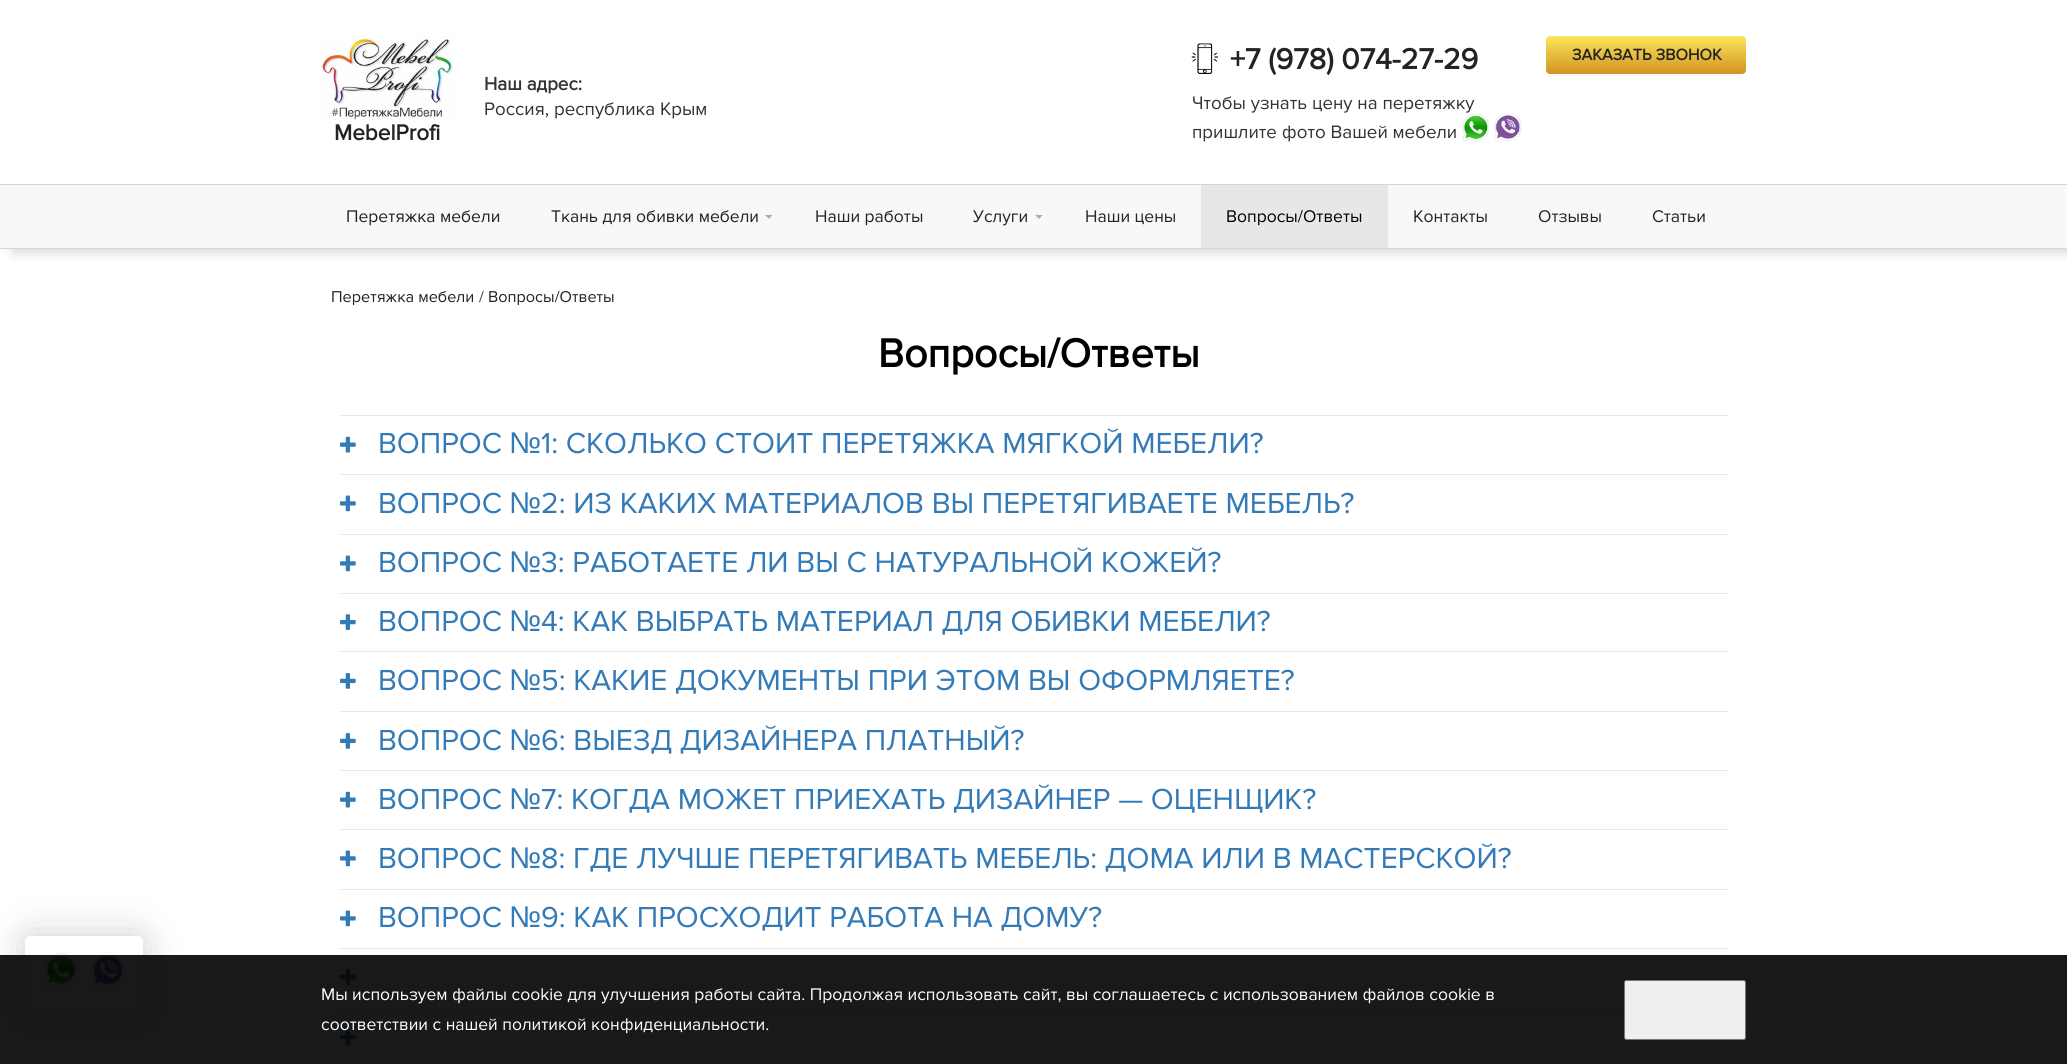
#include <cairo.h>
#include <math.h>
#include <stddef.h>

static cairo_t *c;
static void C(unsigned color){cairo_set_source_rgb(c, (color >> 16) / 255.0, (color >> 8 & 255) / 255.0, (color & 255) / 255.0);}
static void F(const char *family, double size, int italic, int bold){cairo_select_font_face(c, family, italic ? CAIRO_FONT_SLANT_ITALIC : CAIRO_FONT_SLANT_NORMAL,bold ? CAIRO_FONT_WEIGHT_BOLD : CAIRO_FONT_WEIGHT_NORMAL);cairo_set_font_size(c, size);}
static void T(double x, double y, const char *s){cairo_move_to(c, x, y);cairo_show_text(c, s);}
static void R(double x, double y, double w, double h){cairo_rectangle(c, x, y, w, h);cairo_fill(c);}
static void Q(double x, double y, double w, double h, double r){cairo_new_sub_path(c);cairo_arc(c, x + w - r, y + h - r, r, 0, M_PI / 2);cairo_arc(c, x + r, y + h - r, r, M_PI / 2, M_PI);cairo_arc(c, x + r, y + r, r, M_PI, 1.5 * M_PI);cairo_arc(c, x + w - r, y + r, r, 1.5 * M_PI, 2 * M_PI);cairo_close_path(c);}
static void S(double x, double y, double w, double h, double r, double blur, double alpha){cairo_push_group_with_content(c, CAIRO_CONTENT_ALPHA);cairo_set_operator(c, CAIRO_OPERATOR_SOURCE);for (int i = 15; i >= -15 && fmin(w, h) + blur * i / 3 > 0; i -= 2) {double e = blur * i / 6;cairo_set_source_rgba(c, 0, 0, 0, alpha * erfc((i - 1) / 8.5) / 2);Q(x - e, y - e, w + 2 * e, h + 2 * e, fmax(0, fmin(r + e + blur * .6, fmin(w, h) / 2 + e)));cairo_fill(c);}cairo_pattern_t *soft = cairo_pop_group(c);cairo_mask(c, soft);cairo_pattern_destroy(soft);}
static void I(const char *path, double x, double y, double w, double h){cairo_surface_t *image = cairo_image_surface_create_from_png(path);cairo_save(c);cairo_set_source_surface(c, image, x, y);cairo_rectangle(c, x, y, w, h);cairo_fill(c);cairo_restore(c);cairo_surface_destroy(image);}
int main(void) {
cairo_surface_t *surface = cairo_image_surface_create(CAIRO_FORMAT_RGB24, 2067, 1064);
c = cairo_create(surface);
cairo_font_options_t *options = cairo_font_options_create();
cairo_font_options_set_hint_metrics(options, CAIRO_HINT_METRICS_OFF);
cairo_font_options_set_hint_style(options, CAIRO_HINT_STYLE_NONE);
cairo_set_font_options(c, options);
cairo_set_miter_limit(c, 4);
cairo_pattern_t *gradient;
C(0xffffff);
cairo_paint(c);
C(0x000000);
S(13,4,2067,249,0,6,.15);
C(0xf8f8f8);
R(0,185,2067,63);
C(0xffffff);
R(4,0,2063,184);
I("1.png",1191,43,27,31);
F("Proxima Nova",30,0,1);
C(0x232323);
T(1230,69,"+7 (978) 074-27-29");
F("Proxima Nova",18.75,0,0);
C(0x333333);
T(1192,109,"Чтобы узнать цену на перетяжку");
T(1192,138,"пришлите фото Вашей мебели");
I("2.png",1462,113,27,29);
I("3.png",1494,113,28,29);
gradient = cairo_pattern_create_linear(1646,36,1646,74);
cairo_pattern_add_color_stop_rgba(gradient,0,0.988,0.902,0.345,1);
cairo_pattern_add_color_stop_rgba(gradient,1,0.82,0.576,0.141,1);
cairo_set_source(c,gradient);
cairo_pattern_destroy(gradient);
Q(1546,36,200,38,4);
cairo_fill(c);
F("Proxima Nova",16.25,0,1);
C(0x232323);
T(1572,60,"ЗАКАЗАТЬ ЗВОНОК");
F("Proxima Nova",18.75,0,1);
C(0x333333);
T(484,90,"Наш адрес:");
F("Proxima Nova",18.75,0,0);
T(484,115,"Россия, республика Крым");
I("4.png",321,36,132,84);
F("Proxima Nova",22.5,0,1);
C(0x232323);
T(334,140,"MebelProfi");
C(0xd3d5d7);
R(0,184,2067,1);
R(0,248,2067,1);
F("Proxima Nova",17.5,0,0);
C(0x232323);
T(346,222,"Перетяжка мебели");
T(551,222,"Ткань для обивки мебели");
C(0xa5abb7);
cairo_new_path(c);
cairo_move_to(c,765,215);
cairo_line_to(c,772.5,215);
cairo_line_to(c,769,219);
cairo_close_path(c);
cairo_fill(c);
C(0x232323);
T(815,222,"Наши работы");
T(973,222,"Услуги");
C(0xa5abb7);
cairo_new_path(c);
cairo_move_to(c,1035,215);
cairo_line_to(c,1042.5,215);
cairo_line_to(c,1039,219);
cairo_close_path(c);
cairo_fill(c);
C(0x232323);
T(1085,222,"Наши цены");
C(0xe7e7e7);
R(1201,185,187,63);
C(0x000000);
T(1226,222,"Вопросы/Ответы");
C(0x232323);
T(1413,222,"Контакты");
T(1538,222,"Отзывы");
T(1652,222,"Статьи");
F("Proxima Nova",16.25,0,0);
T(331,302,"Перетяжка мебели");
C(0x333333);
T(479,302,"/");
C(0x232323);
T(488,302,"Вопросы/Ответы");
F("Proxima Nova",41.25,0,1);
C(0x000000);
T(878,367,"Вопросы/Ответы");
C(0xe9e9e9);
R(340,415,1388,1);
R(340,474,1388,1);
I("5.png",340,436,16,17);
F("Proxima Nova",30,0,0);
C(0x337ab7);
T(378,453,"ВОПРОС");
F("Liberation Sans",30,0,0);
T(509,453,"№");
F("Proxima Nova",30,0,0);
T(541,453,"1: СКОЛЬКО СТОИТ ПЕРЕТЯЖКА МЯГКОЙ МЕБЕЛИ?");
C(0xe9e9e9);
R(340,534,1388,1);
I("6.png",340,495,16,17);
C(0x337ab7);
T(378,513,"ВОПРОС");
F("Liberation Sans",30,0,0);
T(509,513,"№");
F("Proxima Nova",30,0,0);
T(541,513,"2: ИЗ КАКИХ МАТЕРИАЛОВ ВЫ ПЕРЕТЯГИВАЕТЕ МЕБЕЛЬ?");
C(0xe9e9e9);
R(340,593,1388,1);
I("6.png",340,555,16,17);
C(0x337ab7);
T(378,572,"ВОПРОС");
F("Liberation Sans",30,0,0);
T(509,572,"№");
F("Proxima Nova",30,0,0);
T(541,572,"3: РАБОТАЕТЕ ЛИ ВЫ С НАТУРАЛЬНОЙ КОЖЕЙ?");
C(0xe9e9e9);
R(340,651,1388,1);
I("7.png",340,614,16,16);
C(0x337ab7);
T(378,631,"ВОПРОС");
F("Liberation Sans",30,0,0);
T(509,631,"№");
F("Proxima Nova",30,0,0);
T(541,631,"4: КАК ВЫБРАТЬ МАТЕРИАЛ ДЛЯ ОБИВКИ МЕБЕЛИ?");
C(0xe9e9e9);
R(340,711,1388,1);
I("8.png",340,673,16,16);
C(0x337ab7);
T(378,690,"ВОПРОС");
F("Liberation Sans",30,0,0);
T(509,690,"№");
F("Proxima Nova",30,0,0);
T(541,690,"5: КАКИЕ ДОКУМЕНТЫ ПРИ ЭТОМ ВЫ ОФОРМЛЯЕТЕ?");
C(0xe9e9e9);
R(340,770,1388,1);
I("8.png",340,733,16,16);
C(0x337ab7);
T(378,750,"ВОПРОС");
F("Liberation Sans",30,0,0);
T(509,750,"№");
F("Proxima Nova",30,0,0);
T(541,750,"6: ВЫЕЗД ДИЗАЙНЕРА ПЛАТНЫЙ?");
C(0xe9e9e9);
R(340,829,1388,1);
I("5.png",340,791,16,17);
C(0x337ab7);
T(378,809,"ВОПРОС");
F("Liberation Sans",30,0,0);
T(509,809,"№");
F("Proxima Nova",30,0,0);
T(541,809,"7: КОГДА МОЖЕТ ПРИЕХАТЬ ДИЗАЙНЕР — ОЦЕНЩИК?");
C(0xe9e9e9);
R(340,889,1388,1);
I("6.png",340,850,16,17);
C(0x337ab7);
T(378,868,"ВОПРОС");
F("Liberation Sans",30,0,0);
T(509,868,"№");
F("Proxima Nova",30,0,0);
T(541,868,"8: ГДЕ ЛУЧШЕ ПЕРЕТЯГИВАТЬ МЕБЕЛЬ: ДОМА ИЛИ В МАСТЕРСКОЙ?");
C(0xe9e9e9);
R(340,948,1388,1);
I("6.png",340,910,16,17);
C(0x337ab7);
T(378,927,"ВОПРОС");
F("Liberation Sans",30,0,0);
T(509,927,"№");
F("Proxima Nova",30,0,0);
T(541,927,"9: КАК ПРОСХОДИТ РАБОТА НА ДОМУ?");
C(0xe9e9e9);
R(340,1008,1284,1);
I("7.png",340,969,16,16);
I("7.png",340,1029,16,16);
C(0x000000);
S(25,936,118,79,6,19,.2);
C(0xffffff);
Q(25,936,118,79,6);
cairo_fill(c);
I("9.png",44,952,34,36);
I("10.png",90,952,36,36);
cairo_set_source_rgba(c,0,0,0,0.9);
R(0,955,2067,109);
F("Proxima Nova",17.5,0,0);
C(0xffffff);
T(321,1000,"Мы используем файлы cookie для улучшения работы сайта. Продолжая использовать сайт, вы соглашаетесь с использованием файлов cookie в");
T(321,1030,"соответствии с нашей политикой конфиденциальности.");
C(0xefefef);
Q(1624.5,980.5,121,59,2);
cairo_fill_preserve(c);
C(0x767676);
cairo_set_line_width(c,1);
cairo_stroke(c);
cairo_surface_write_to_png(surface, "o.png");
cairo_font_options_destroy(options);
cairo_destroy(c);
cairo_surface_destroy(surface);
return 0;
}
